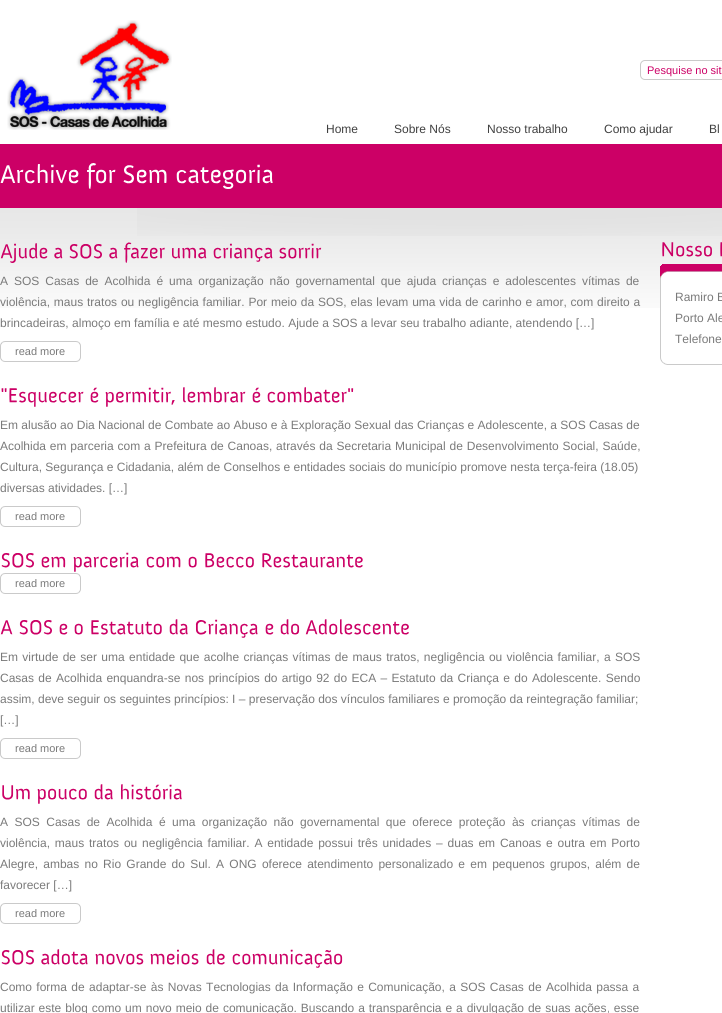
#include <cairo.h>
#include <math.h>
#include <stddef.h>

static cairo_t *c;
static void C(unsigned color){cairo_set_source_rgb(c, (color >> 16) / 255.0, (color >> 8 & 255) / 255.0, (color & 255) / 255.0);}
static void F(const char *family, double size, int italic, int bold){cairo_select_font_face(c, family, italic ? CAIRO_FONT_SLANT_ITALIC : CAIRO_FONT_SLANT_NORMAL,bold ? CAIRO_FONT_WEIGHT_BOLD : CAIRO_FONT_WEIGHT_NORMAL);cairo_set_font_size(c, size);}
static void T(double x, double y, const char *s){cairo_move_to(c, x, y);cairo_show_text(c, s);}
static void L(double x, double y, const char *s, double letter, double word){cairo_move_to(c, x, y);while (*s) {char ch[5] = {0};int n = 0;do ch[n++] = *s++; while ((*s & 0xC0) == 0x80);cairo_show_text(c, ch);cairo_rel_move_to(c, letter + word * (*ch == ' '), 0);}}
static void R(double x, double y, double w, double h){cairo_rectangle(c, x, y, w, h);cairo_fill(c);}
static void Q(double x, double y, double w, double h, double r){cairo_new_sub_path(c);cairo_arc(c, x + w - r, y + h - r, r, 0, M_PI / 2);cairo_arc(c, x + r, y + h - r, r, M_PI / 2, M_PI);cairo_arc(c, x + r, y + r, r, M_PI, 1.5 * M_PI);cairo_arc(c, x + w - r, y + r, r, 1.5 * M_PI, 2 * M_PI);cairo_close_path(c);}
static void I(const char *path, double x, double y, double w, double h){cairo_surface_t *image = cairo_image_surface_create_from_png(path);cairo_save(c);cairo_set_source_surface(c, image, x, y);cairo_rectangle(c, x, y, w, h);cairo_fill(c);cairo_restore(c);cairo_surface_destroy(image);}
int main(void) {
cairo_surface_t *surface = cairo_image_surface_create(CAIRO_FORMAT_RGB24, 722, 1013);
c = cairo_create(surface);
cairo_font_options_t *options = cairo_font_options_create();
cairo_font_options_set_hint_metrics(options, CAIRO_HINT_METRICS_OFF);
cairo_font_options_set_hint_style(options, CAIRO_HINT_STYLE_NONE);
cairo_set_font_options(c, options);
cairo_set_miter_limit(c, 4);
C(0xffffff);
cairo_paint(c);
I("1.png",7,20,165,110);
Q(640.5,60.5,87,19,4.5);
C(0xcacaca);
cairo_set_line_width(c,1);
cairo_stroke(c);
F("Liberation Sans",11,0,0);
C(0xcc0066);
T(647,74,"Pesquise no sit");
F("Liberation Sans",12,0,0);
C(0x404040);
T(326,133,"Home");
T(394,133,"Sobre Nós");
T(487,133,"Nosso trabalho");
T(604,133,"Como ajudar");
T(709,133,"Bl");
C(0xcc0066);
R(0,144,722,64);
I("2.png",0,164,79,20);
I("3.png",87,163,29,26);
I("4.png",123,165,44,19);
I("5.png",176,164,97,25);
I("6.png",0,208,722,100);
I("7.png",137,208,585,28);
I("8.png",0,243,48,20);
I("9.png",54,247,9,12);
I("10.png",69,244,33,15);
I("9.png",109,247,9,12);
I("11.png",124,242,41,21);
I("12.png",172,247,35,12);
I("13.png",213,243,60,19);
I("14.png",279,243,43,16);
C(0x7a7a7a);
L(0,285,"A SOS Casas de Acolhida é uma organização não governamental que ajuda crianças e adolescentes vítimas de",0,2.6);
L(0,306,"violência, maus tratos ou negligência familiar. Por meio da SOS, elas levam uma vida de carinho e amor, com direito a",0,.5);
T(0,327,"brincadeiras, almoço em família e até mesmo estudo. Ajude a SOS a levar seu trabalho adiante, atendendo […]");
I("15.png",75,341,6,21);
I("16.png",0,341,75,21);
F("Liberation Sans",11,0,0);
T(15,355,"read more");
I("17.png",1,388,83,19);
I("18.png",90,387,9,16);
I("19.png",105,387,70,20);
I("20.png",183,387,63,16);
I("18.png",252,387,9,16);
I("21.png",267,387,87,16);
F("Liberation Sans",12,0,0);
T(0,429,"Em alusão ao Dia Nacional de Combate ao Abuso e à Exploração Sexual das Crianças e Adolescente, a SOS Casas de");
L(0,450,"Acolhida em parceria com a Prefeitura de Canoas, através da Secretaria Municipal de Desenvolvimento Social, Saúde,",0,.5);
T(0,471,"Cultura, Segurança e Cidadania, além de Conselhos e entidades sociais do município promove nesta terça-feira (18.05)");
T(0,492,"diversas atividades. […]");
I("15.png",75,506,6,21);
I("16.png",0,506,75,21);
F("Liberation Sans",11,0,0);
T(15,520,"read more");
I("22.png",1,553,33,15);
I("23.png",41,556,25,12);
I("24.png",73,552,66,20);
I("25.png",146,556,35,12);
I("26.png",188,556,9,12);
I("27.png",205,553,49,15);
I("28.png",262,553,101,15);
I("15.png",75,573,6,21);
I("16.png",0,573,75,21);
T(15,587,"read more");
I("29.png",0,620,13,15);
I("22.png",19,620,33,15);
I("30.png",59,623,9,12);
I("26.png",74,623,9,12);
I("31.png",91,620,71,15);
I("32.png",169,619,19,16);
I("33.png",195,619,63,19);
I("30.png",265,623,9,12);
I("34.png",280,619,20,16);
I("35.png",305,619,104,16);
F("Liberation Sans",12,0,0);
L(0,661,"Em virtude de ser uma entidade que acolhe crianças vítimas de maus tratos, negligência ou violência familiar, a SOS",0,1);
L(0,682,"Casas de Acolhida enquandra-se nos princípios do artigo 92 do ECA – Estatuto da Criança e do Adolescente. Sendo",0,1);
T(0,703,"assim, deve seguir os seguintes princípios: I – preservação dos vínculos familiares e promoção da reintegração familiar;");
T(0,724,"[…]");
I("15.png",75,738,6,21);
I("16.png",0,738,75,21);
F("Liberation Sans",11,0,0);
T(15,752,"read more");
I("36.png",2,785,28,15);
I("37.png",37,788,50,16);
I("32.png",94,784,19,16);
I("38.png",120,784,62,16);
F("Liberation Sans",12,0,0);
L(0,826,"A SOS Casas de Acolhida é uma organização não governamental que oferece proteção às crianças vítimas de",0,3.1);
L(0,847,"violência, maus tratos ou negligência familiar. A entidade possui três unidades – duas em Canoas e outra em Porto",0,1.5);
L(0,868,"Alegre, ambas no Rio Grande do Sul. A ONG oferece atendimento personalizado e em pequenos grupos, além de",0,1.9);
T(0,889,"favorecer […]");
I("15.png",75,903,6,21);
I("16.png",0,903,75,21);
F("Liberation Sans",11,0,0);
T(15,917,"read more");
I("22.png",1,950,33,15);
I("39.png",41,949,47,16);
I("40.png",95,953,49,12);
I("41.png",150,949,49,16);
I("42.png",206,949,19,16);
I("43.png",232,949,111,19);
F("Liberation Sans",12,0,0);
L(0,991,"Como forma de adaptar-se às Novas Tecnologias da Informação e Comunicação, a SOS Casas de Acolhida passa a",0,1);
L(0,1012,"utilizar este blog como um novo meio de comunicação. Buscando a transparência e a divulgação de suas ações, esse",0,.6);
I("44.png",662,242,50,15);
I("45.png",720,242,2,15);
I("46.png",660,264,62,16);
C(0xffffff);
R(661,280,61,28);
C(0xcacaca);
R(660,280,1,77);
C(0x7a7a7a);
T(675,301,"Ramiro B");
T(675,322,"Porto Ale");
T(675,343,"Telefone");
I("47.png",660,357,62,8);
cairo_surface_write_to_png(surface, "o.png");
cairo_font_options_destroy(options);
cairo_destroy(c);
cairo_surface_destroy(surface);
return 0;
}
